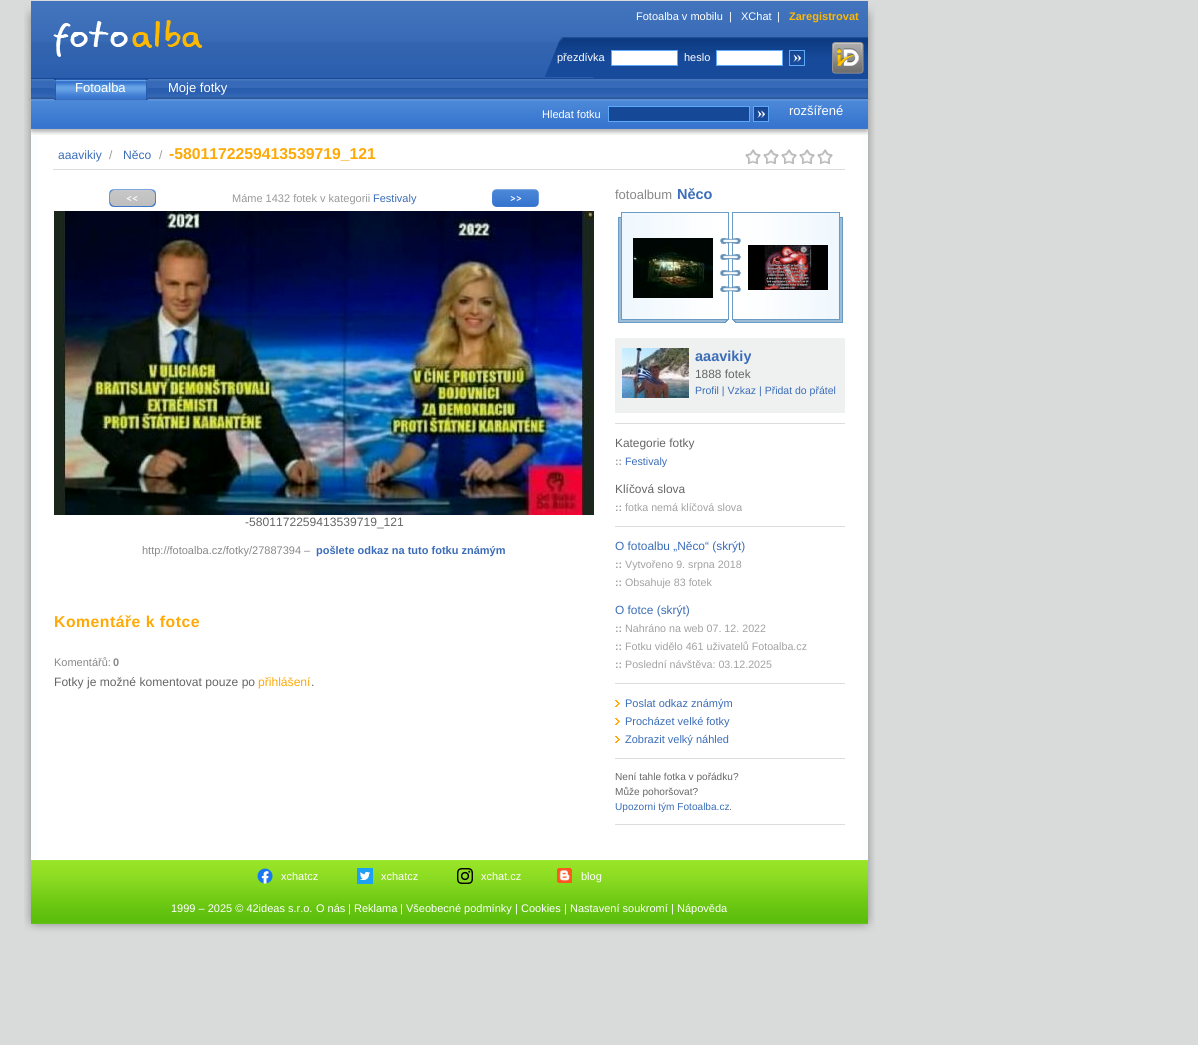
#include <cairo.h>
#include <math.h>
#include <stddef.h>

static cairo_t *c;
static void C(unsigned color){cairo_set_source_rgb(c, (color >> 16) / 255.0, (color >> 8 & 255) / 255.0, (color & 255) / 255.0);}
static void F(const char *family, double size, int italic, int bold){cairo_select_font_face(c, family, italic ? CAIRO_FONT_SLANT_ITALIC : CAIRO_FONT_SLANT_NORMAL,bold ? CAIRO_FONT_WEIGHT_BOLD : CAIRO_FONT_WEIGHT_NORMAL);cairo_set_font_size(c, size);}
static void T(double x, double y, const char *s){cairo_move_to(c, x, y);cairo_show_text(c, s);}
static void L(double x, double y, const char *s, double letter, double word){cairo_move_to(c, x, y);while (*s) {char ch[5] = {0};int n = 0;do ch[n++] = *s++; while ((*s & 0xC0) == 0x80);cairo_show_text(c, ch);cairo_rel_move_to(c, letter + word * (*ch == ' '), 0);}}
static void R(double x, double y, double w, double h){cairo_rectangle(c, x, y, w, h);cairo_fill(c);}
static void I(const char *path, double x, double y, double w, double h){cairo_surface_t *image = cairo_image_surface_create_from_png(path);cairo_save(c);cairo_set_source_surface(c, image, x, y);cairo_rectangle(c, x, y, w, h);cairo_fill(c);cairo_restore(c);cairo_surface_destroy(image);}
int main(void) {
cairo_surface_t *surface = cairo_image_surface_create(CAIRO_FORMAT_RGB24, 1198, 1045);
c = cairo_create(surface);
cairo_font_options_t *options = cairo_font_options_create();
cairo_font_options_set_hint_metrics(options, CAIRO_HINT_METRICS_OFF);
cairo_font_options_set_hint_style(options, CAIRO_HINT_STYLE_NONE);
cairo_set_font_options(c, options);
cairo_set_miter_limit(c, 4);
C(0xd9dbdb);
cairo_paint(c);
I("1.png",24,1,851,76);
F("Liberation Sans",11,0,0);
C(0xffffff);
T(636,20,"Fotoalba v mobilu");
T(729,20,"|");
T(741,20,"XChat");
T(777,20,"|");
F("Liberation Sans",11,0,1);
C(0xfdb801);
T(789,20,"Zaregistrovat");
F("Liberation Sans",11,0,0);
C(0xffffff);
T(557,61,"přezdívka");
cairo_rectangle(c,611.5,50.5,66,15);
cairo_fill_preserve(c);
C(0x5ea8fa);
cairo_set_line_width(c,1);
cairo_stroke(c);
C(0xffffff);
T(684,61,"heslo");
cairo_rectangle(c,716.5,50.5,66,15);
cairo_fill_preserve(c);
C(0x5ea8fa);
cairo_stroke(c);
I("2.png",789,50,16,16);
I("3.png",832,42,32,32);
I("4.png",24,77,851,23);
I("6.png",24,100,851,35);
I("5.png",54,79,94,22);
F("Liberation Sans",13,0,0);
C(0xffffff);
T(75,92,"Fotoalba");
T(168,92,"Moje fotky");
F("Liberation Sans",11,0,0);
T(542,118,"Hledat fotku");
C(0x164898);
cairo_rectangle(c,608.5,106.5,141,15);
cairo_fill_preserve(c);
C(0x5ea8fa);
cairo_stroke(c);
I("2.png",753,106,16,16);
F("Liberation Sans",13,0,0);
C(0xffffff);
T(789,115,"rozšířené");
I("7.png",24,135,851,725);
F("Liberation Sans",12.1,0,0);
C(0x3b6db8);
T(58,159,"aaavikiy");
C(0x999999);
T(109,159,"/");
C(0x3b6db8);
T(123,159,"Něco");
C(0x999999);
T(159,159,"/");
F("Liberation Sans",15.75,0,1);
C(0xfea906);
T(169,159,"-5801172259413539719_121");
I("8.png",745,149,16,15);
I("8.png",763,149,16,15);
I("8.png",781,149,16,15);
I("8.png",799,149,16,15);
I("8.png",817,149,16,15);
C(0xdddddd);
R(53,169,792,1);
I("9.png",109,189,47,18);
F("Liberation Sans",11,0,0);
C(0x999999);
T(232,202,"Máme 1432 fotek v kategorii");
C(0x3b6db8);
T(373,202,"Festivaly");
I("10.png",492,189,47,18);
I("11.png",54,211,540,304);
F("Liberation Sans",12.1,0,0);
C(0x666666);
T(245,526,"-5801172259413539719_121");
F("Liberation Sans",11,0,0);
C(0x888888);
T(142,554,"http://fotoalba.cz/fotky/27887394 –");
F("Liberation Sans",11,0,1);
C(0x3b6db8);
T(316,554,"pošlete odkaz na tuto fotku známým");
F("Liberation Sans",15.75,0,1);
C(0xfea906);
L(54,627,"Komentáře k fotce",.5,0);
F("Liberation Sans",11,0,0);
C(0x888888);
T(54,666,"Komentářů:");
F("Liberation Sans",11,0,1);
T(113,666,"0");
F("Liberation Sans",12.1,0,0);
C(0x666666);
T(54,686,"Fotky je možné komentovat pouze po");
C(0xfea906);
T(258,686,"přihlášení");
C(0x666666);
T(311,686,".");
F("Liberation Sans",13,0,0);
C(0x888888);
T(615,199,"fotoalbum");
F("Liberation Sans",14.5,0,1);
C(0x3b6db8);
T(677,199,"Něco");
I("12.png",618,212,225,111);
I("13.png",633,238,80,60);
I("14.png",748,245,80,45);
C(0xeff0f0);
R(615,338,230,75);
I("15.png",622,348,67,50);
C(0x3b6db8);
T(695,361,"aaavikiy");
F("Liberation Sans",11.9,0,0);
C(0x666666);
T(695,378,"1888 fotek");
F("Liberation Sans",10.5,0,0);
C(0x3b6db8);
T(695,394,"Profil | Vzkaz | Přidat do přátel");
C(0xdddddd);
R(615,423,230,1);
F("Liberation Sans",11.9,0,0);
C(0x666666);
T(615,447,"Kategorie fotky");
F("Liberation Sans",10.7,0,1);
C(0xa2a2a2);
T(615,465,"::");
F("Liberation Sans",10.7,0,0);
C(0x3b6db8);
T(625,465,"Festivaly");
F("Liberation Sans",11.9,0,0);
C(0x666666);
T(615,493,"Klíčová slova");
F("Liberation Sans",10.7,0,1);
C(0xa2a2a2);
T(615,511,"::");
F("Liberation Sans",10.7,0,0);
T(625,511,"fotka nemá klíčová slova");
C(0xdddddd);
R(615,526,230,1);
F("Liberation Sans",11.9,0,0);
C(0x3b6db8);
T(615,550,"O fotoalbu „Něco“ (skrýt)");
F("Liberation Sans",10.7,0,1);
C(0xa2a2a2);
T(615,568,"::");
F("Liberation Sans",10.7,0,0);
T(625,568,"Vytvořeno 9. srpna 2018");
F("Liberation Sans",10.7,0,1);
T(615,586,"::");
F("Liberation Sans",10.7,0,0);
T(625,586,"Obsahuje 83 fotek");
F("Liberation Sans",11.9,0,0);
C(0x3b6db8);
T(615,614,"O fotce (skrýt)");
F("Liberation Sans",10.7,0,1);
C(0xa2a2a2);
T(615,632,"::");
F("Liberation Sans",10.7,0,0);
T(625,632,"Nahráno na web 07. 12. 2022");
F("Liberation Sans",10.7,0,1);
T(615,650,"::");
F("Liberation Sans",10.7,0,0);
T(625,650,"Fotku vidělo 461 uživatelů Fotoalba.cz");
F("Liberation Sans",10.7,0,1);
T(615,668,"::");
F("Liberation Sans",10.7,0,0);
T(625,668,"Poslední návštěva: 03.12.2025");
C(0xdddddd);
R(615,683,230,1);
I("16.png",615,700,5,7);
F("Liberation Sans",11,0,0);
C(0x3b6db8);
T(625,707,"Poslat odkaz známým");
I("16.png",615,718,5,7);
T(625,725,"Procházet velké fotky");
I("16.png",615,736,5,7);
T(625,743,"Zobrazit velký náhled");
C(0xdddddd);
R(615,758,230,1);
F("Liberation Sans",10.1,0,0);
C(0x666666);
T(615,780,"Není tahle fotka v pořádku?");
T(615,795,"Může pohoršovat?");
C(0x3b6db8);
T(615,810,"Upozorni tým Fotoalba.cz");
C(0x666666);
T(729,810,".");
C(0xdddddd);
R(615,824,230,1);
I("17.png",24,860,851,77);
I("18.png",257,868,16,16);
F("Liberation Sans",11,0,0);
C(0xffffff);
T(281,880,"xchatcz");
I("19.png",357,868,16,16);
T(381,880,"xchatcz");
I("20.png",457,868,16,16);
T(481,880,"xchat.cz");
I("21.png",557,868,15,15);
T(581,880,"blog");
T(171,912,"1999 – 2025 © 42ideas s.r.o.");
T(316,912,"O nás");
T(348,912,"|");
T(354,912,"Reklama");
T(400,912,"|");
T(406,912,"Všeobecné podmínky");
T(515,912,"|");
T(521,912,"Cookies");
T(564,912,"|");
T(570,912,"Nastavení soukromí");
T(671,912,"|");
T(677,912,"Nápověda");
cairo_surface_write_to_png(surface, "o.png");
cairo_font_options_destroy(options);
cairo_destroy(c);
cairo_surface_destroy(surface);
return 0;
}
